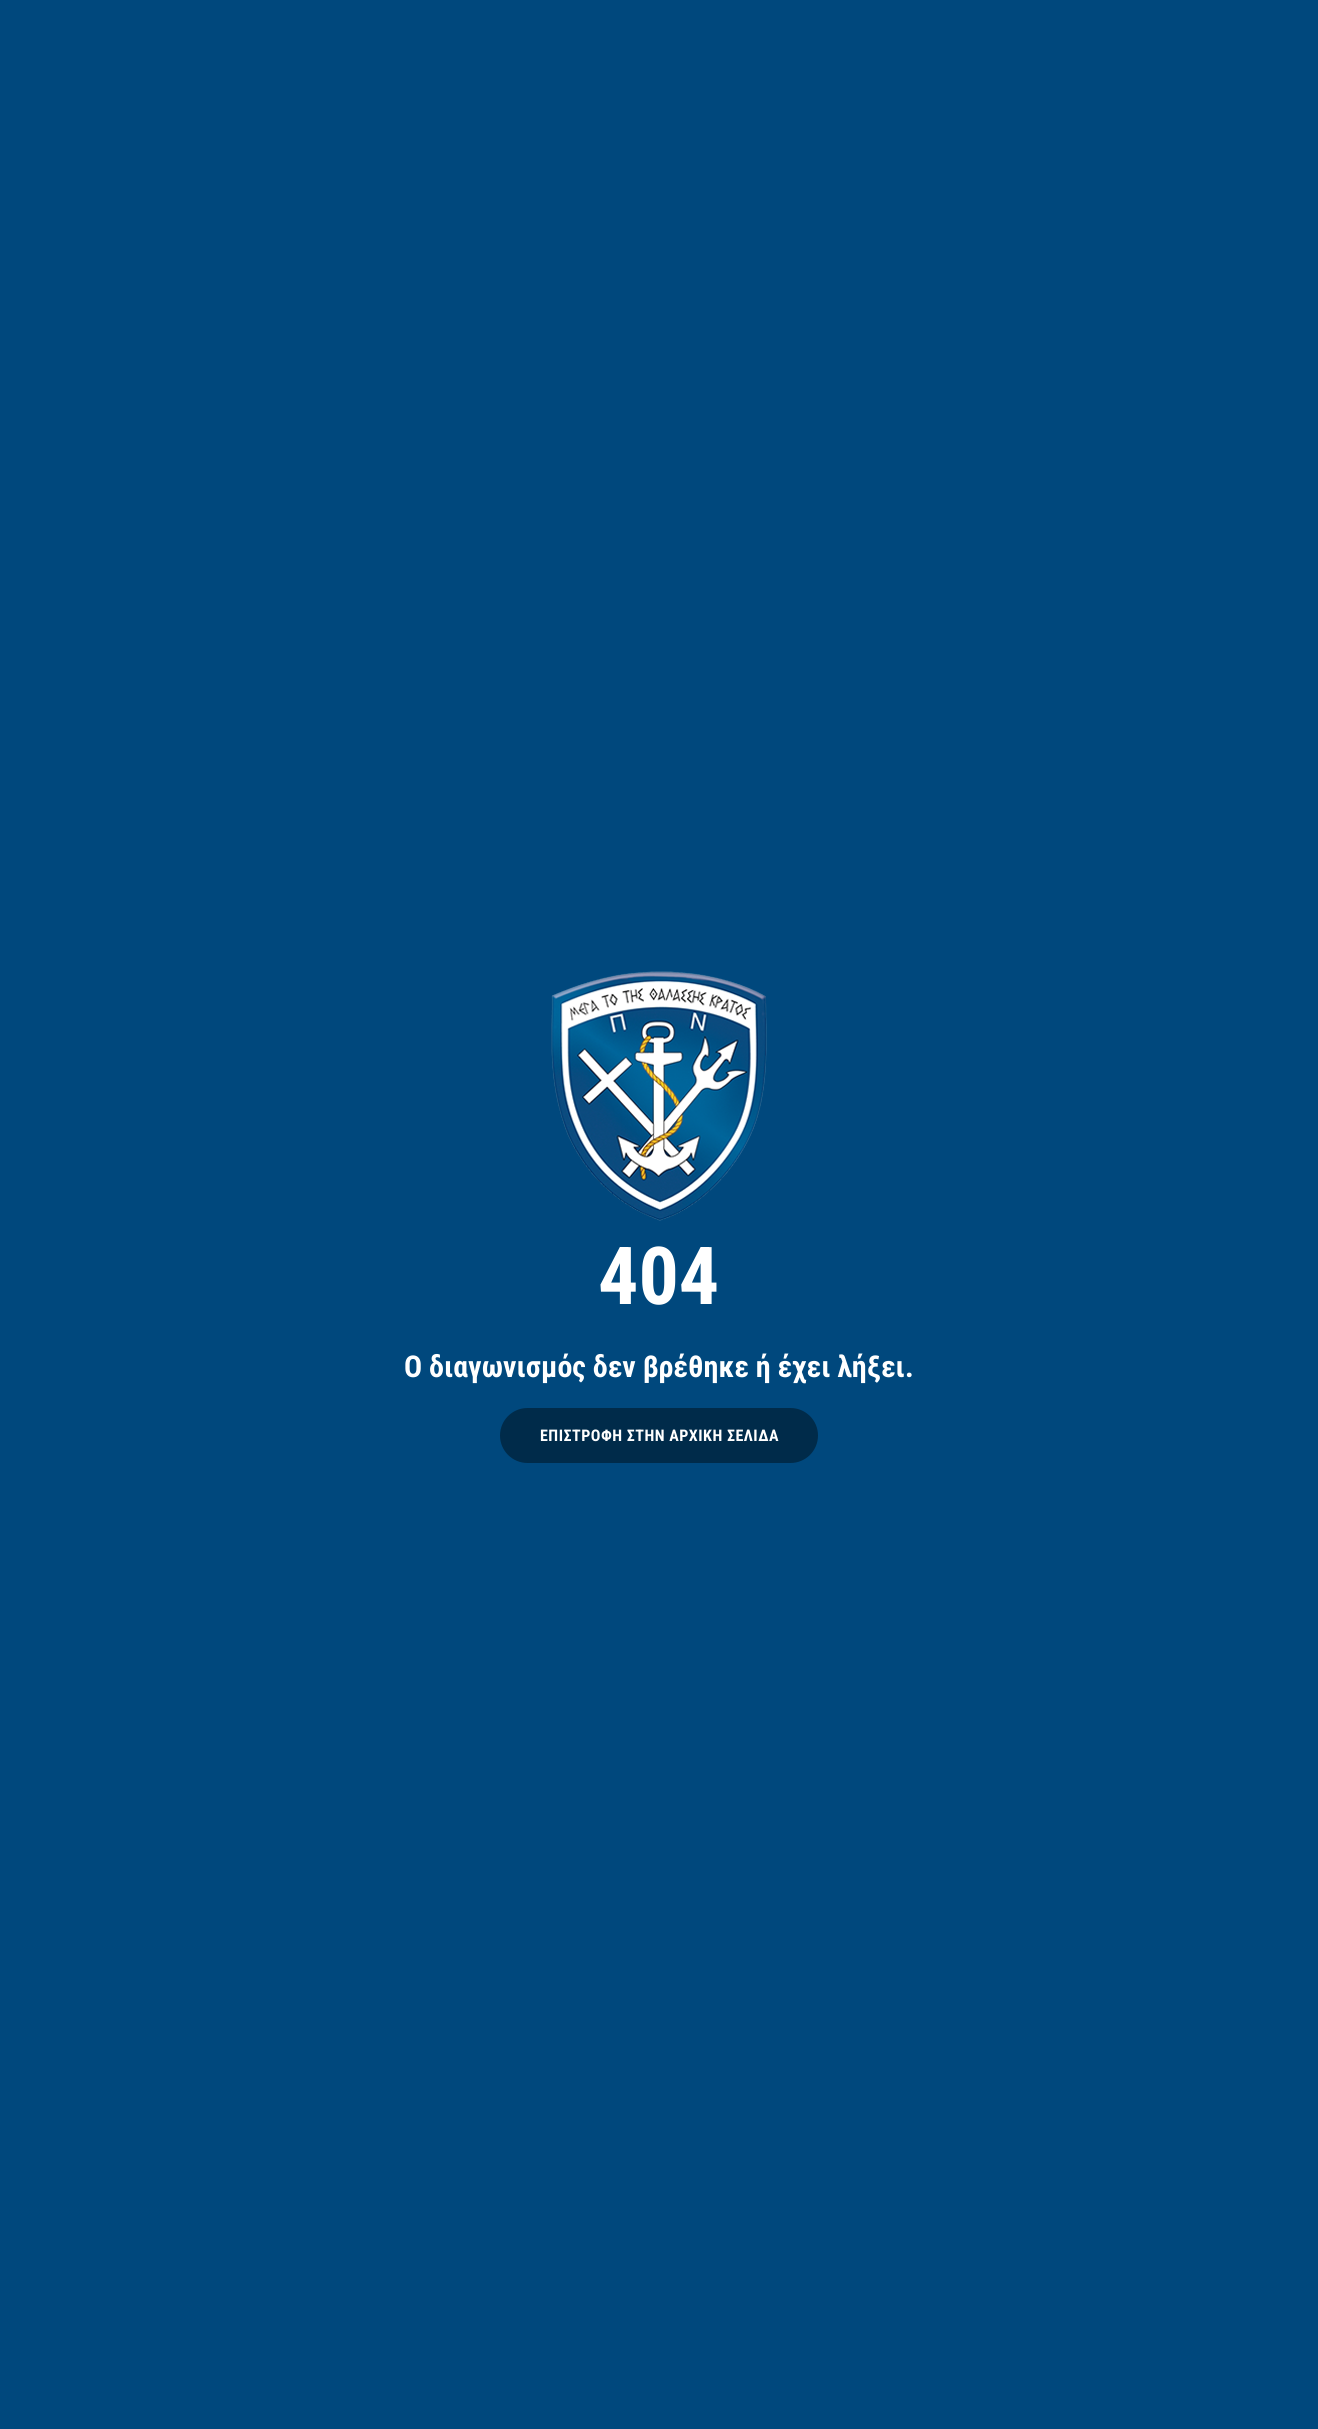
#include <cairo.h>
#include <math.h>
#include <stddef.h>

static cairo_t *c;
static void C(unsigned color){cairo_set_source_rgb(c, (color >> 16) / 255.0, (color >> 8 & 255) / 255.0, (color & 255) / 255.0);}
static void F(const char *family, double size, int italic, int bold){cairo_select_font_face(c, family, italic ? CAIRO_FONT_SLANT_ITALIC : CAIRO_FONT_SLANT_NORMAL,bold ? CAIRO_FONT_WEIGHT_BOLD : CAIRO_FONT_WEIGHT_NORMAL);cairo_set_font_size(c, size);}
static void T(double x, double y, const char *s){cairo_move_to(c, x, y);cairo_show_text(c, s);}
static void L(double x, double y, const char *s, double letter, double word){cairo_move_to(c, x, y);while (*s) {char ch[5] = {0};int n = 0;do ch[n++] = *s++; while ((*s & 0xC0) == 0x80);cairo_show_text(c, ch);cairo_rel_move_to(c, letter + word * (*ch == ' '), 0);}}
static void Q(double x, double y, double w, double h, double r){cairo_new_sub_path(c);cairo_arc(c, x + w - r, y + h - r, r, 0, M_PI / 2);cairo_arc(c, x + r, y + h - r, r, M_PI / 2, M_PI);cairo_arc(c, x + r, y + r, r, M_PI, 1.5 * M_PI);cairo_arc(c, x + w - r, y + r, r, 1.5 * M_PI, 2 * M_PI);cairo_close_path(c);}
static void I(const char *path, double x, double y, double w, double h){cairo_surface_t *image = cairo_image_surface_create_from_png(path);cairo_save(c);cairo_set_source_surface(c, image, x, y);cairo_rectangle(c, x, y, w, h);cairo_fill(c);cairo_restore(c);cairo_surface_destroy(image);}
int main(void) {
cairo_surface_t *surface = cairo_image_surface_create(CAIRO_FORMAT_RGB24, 1318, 2429);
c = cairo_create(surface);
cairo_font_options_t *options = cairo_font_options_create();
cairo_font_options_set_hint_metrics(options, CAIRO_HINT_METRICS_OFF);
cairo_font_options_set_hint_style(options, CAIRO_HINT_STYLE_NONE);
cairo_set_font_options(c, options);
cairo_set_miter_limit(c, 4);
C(0x00487d);
cairo_paint(c);
I("1.png",551,971,216,250);
F("Roboto Condensed",80,0,1);
C(0xffffff);
T(598,1304,"404");
F("Roboto Condensed",30,0,1);
T(404,1377,"Ο διαγωνισμός δεν βρέθηκε ή έχει λήξει.");
C(0x002b4a);
Q(500,1408,318,55,27.5);
cairo_fill(c);
F("Roboto Condensed",16,0,1);
C(0xffffff);
L(540,1441,"ΕΠΙΣΤΡΟΦΗ ΣΤΗΝ ΑΡΧΙΚΗ ΣΕΛΙΔΑ",.5,0);
cairo_surface_write_to_png(surface, "o.png");
cairo_font_options_destroy(options);
cairo_destroy(c);
cairo_surface_destroy(surface);
return 0;
}
